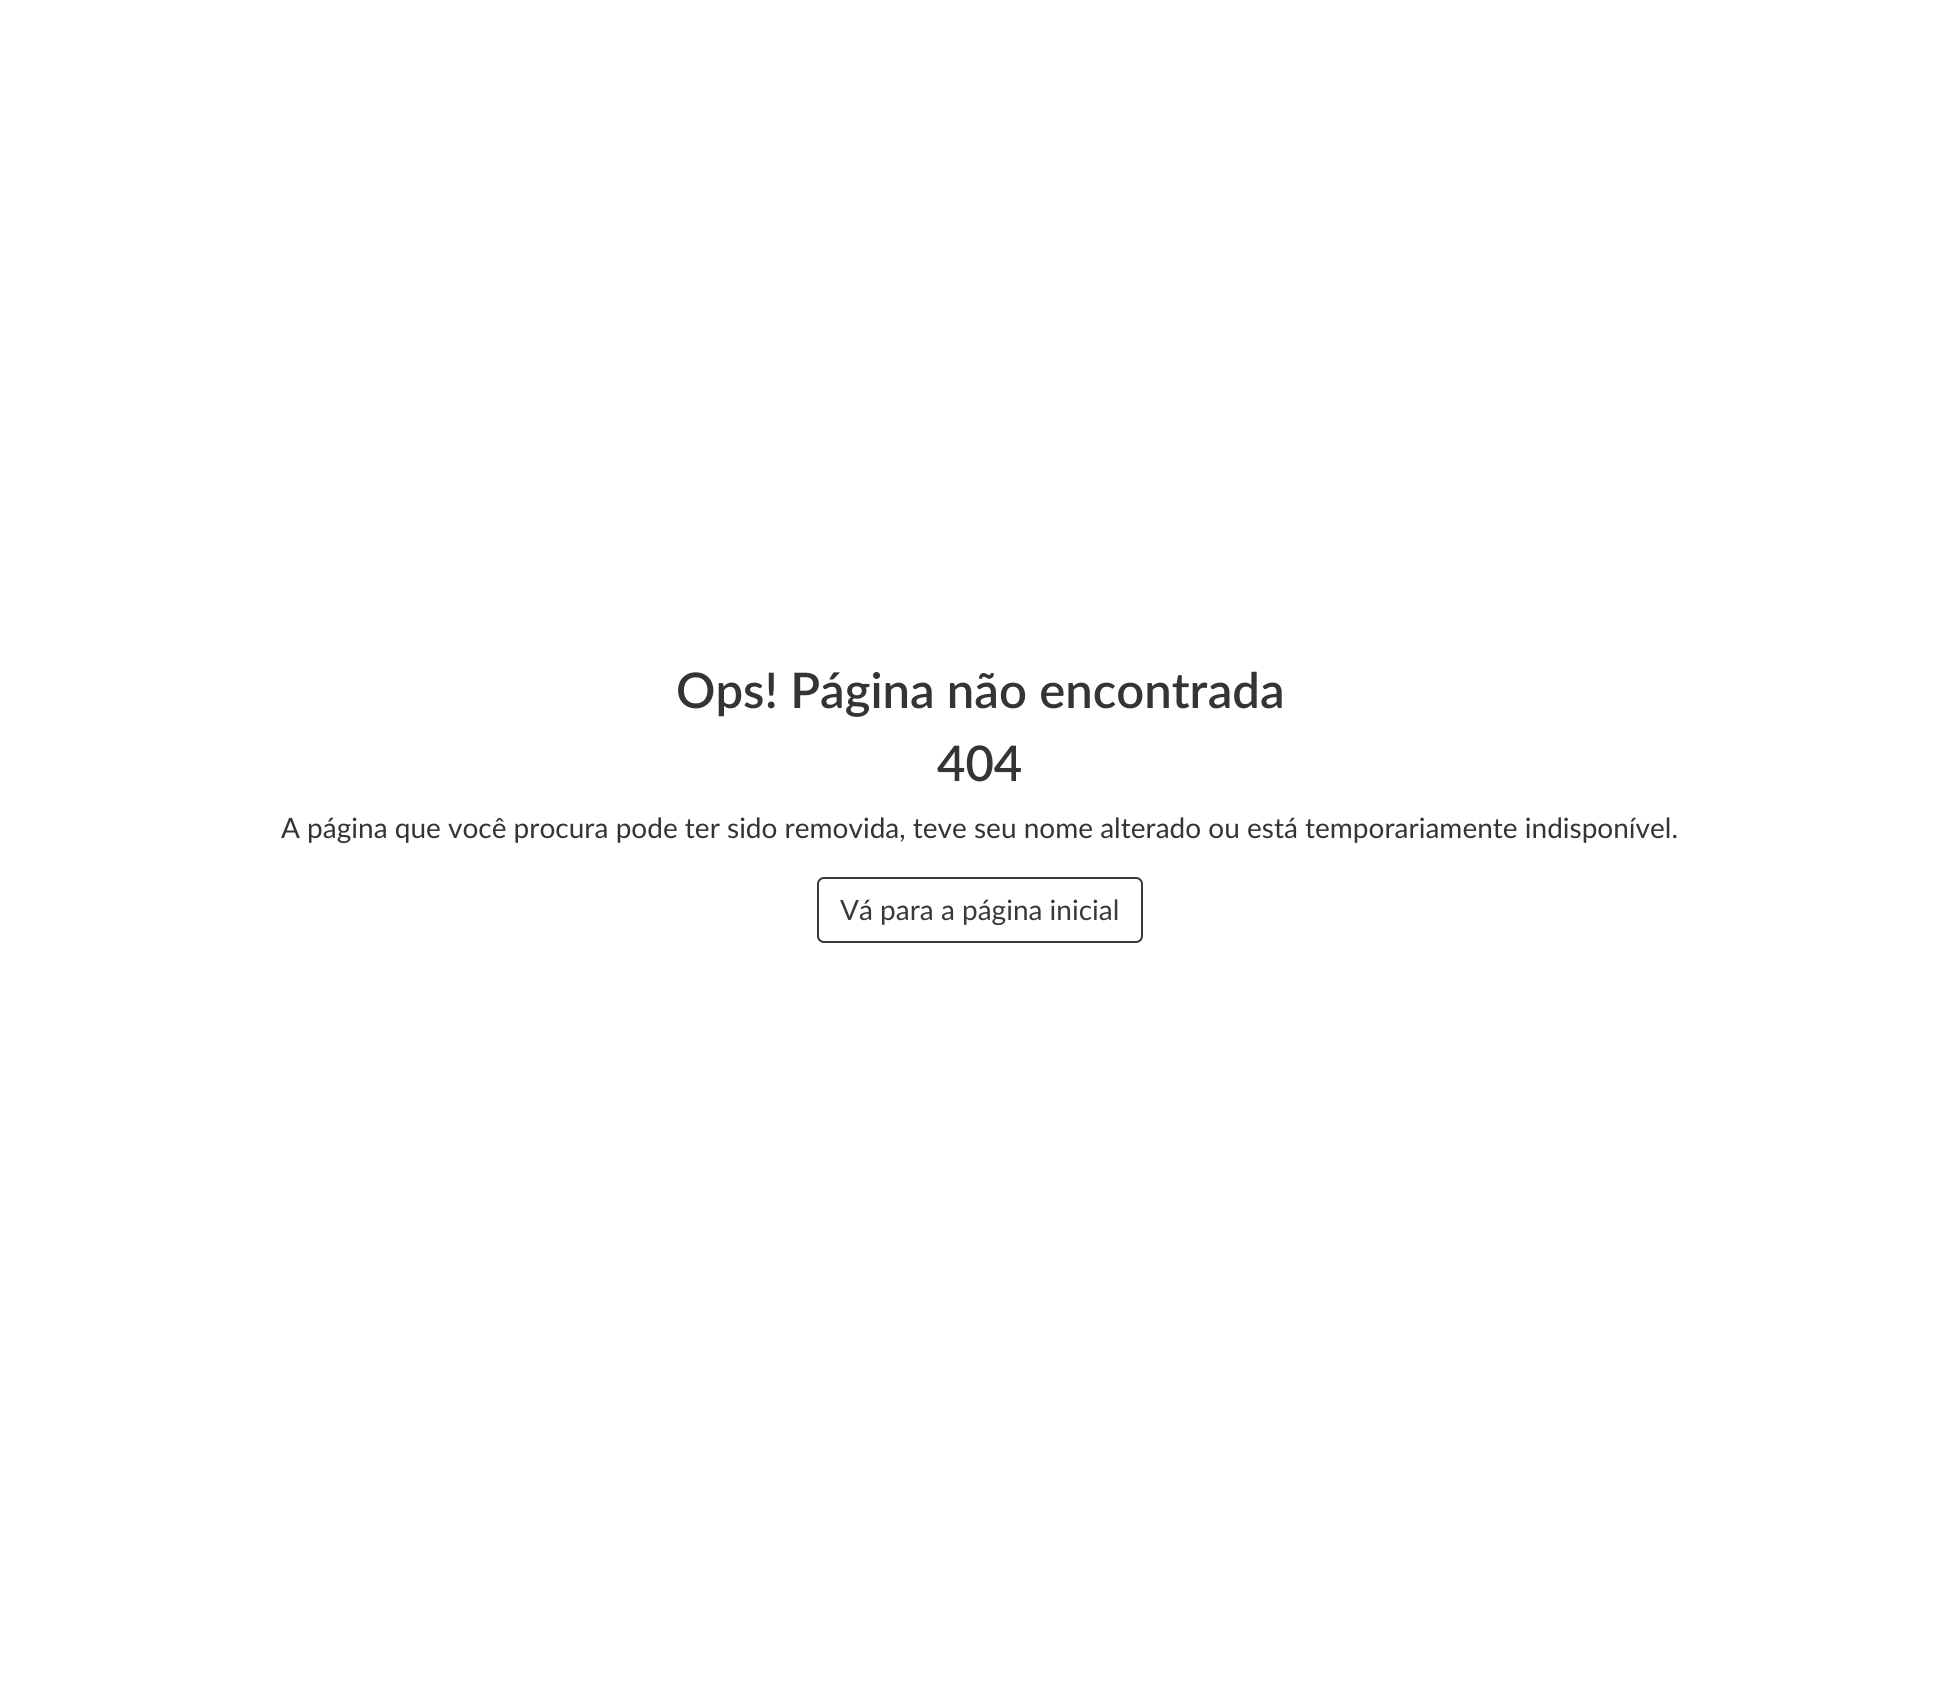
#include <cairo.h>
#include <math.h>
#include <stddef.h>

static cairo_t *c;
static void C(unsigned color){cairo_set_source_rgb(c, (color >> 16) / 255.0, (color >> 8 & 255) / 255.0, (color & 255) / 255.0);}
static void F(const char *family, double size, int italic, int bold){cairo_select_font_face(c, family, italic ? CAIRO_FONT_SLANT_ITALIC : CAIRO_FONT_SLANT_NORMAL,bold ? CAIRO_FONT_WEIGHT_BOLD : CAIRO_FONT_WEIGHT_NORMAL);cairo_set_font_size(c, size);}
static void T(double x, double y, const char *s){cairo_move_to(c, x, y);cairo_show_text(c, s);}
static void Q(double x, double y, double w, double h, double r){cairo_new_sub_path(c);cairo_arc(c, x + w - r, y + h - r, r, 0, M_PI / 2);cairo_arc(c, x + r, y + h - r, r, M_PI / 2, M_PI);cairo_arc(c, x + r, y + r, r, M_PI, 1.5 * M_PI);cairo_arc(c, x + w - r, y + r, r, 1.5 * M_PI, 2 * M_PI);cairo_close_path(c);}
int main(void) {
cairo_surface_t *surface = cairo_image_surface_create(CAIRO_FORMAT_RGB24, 1960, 1687);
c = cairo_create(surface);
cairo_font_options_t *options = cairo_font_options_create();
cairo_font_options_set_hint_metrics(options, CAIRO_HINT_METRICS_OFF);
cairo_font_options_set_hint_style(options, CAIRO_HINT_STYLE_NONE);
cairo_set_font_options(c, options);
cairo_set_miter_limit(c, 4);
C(0xffffff);
cairo_paint(c);
F("Lato SemiBold",49,0,0);
C(0x323537);
T(676,708,"Ops! Página não encontrada");
T(937,781,"404");
F("Lato",28,0,0);
T(281,838,"A página que você procura pode ter sido removida, teve seu nome alterado ou está temporariamente indisponível.");
Q(818,878,324,64,6);
C(0x343a40);
cairo_stroke(c);
T(840,920,"Vá para a página inicial");
cairo_surface_write_to_png(surface, "o.png");
cairo_font_options_destroy(options);
cairo_destroy(c);
cairo_surface_destroy(surface);
return 0;
}
